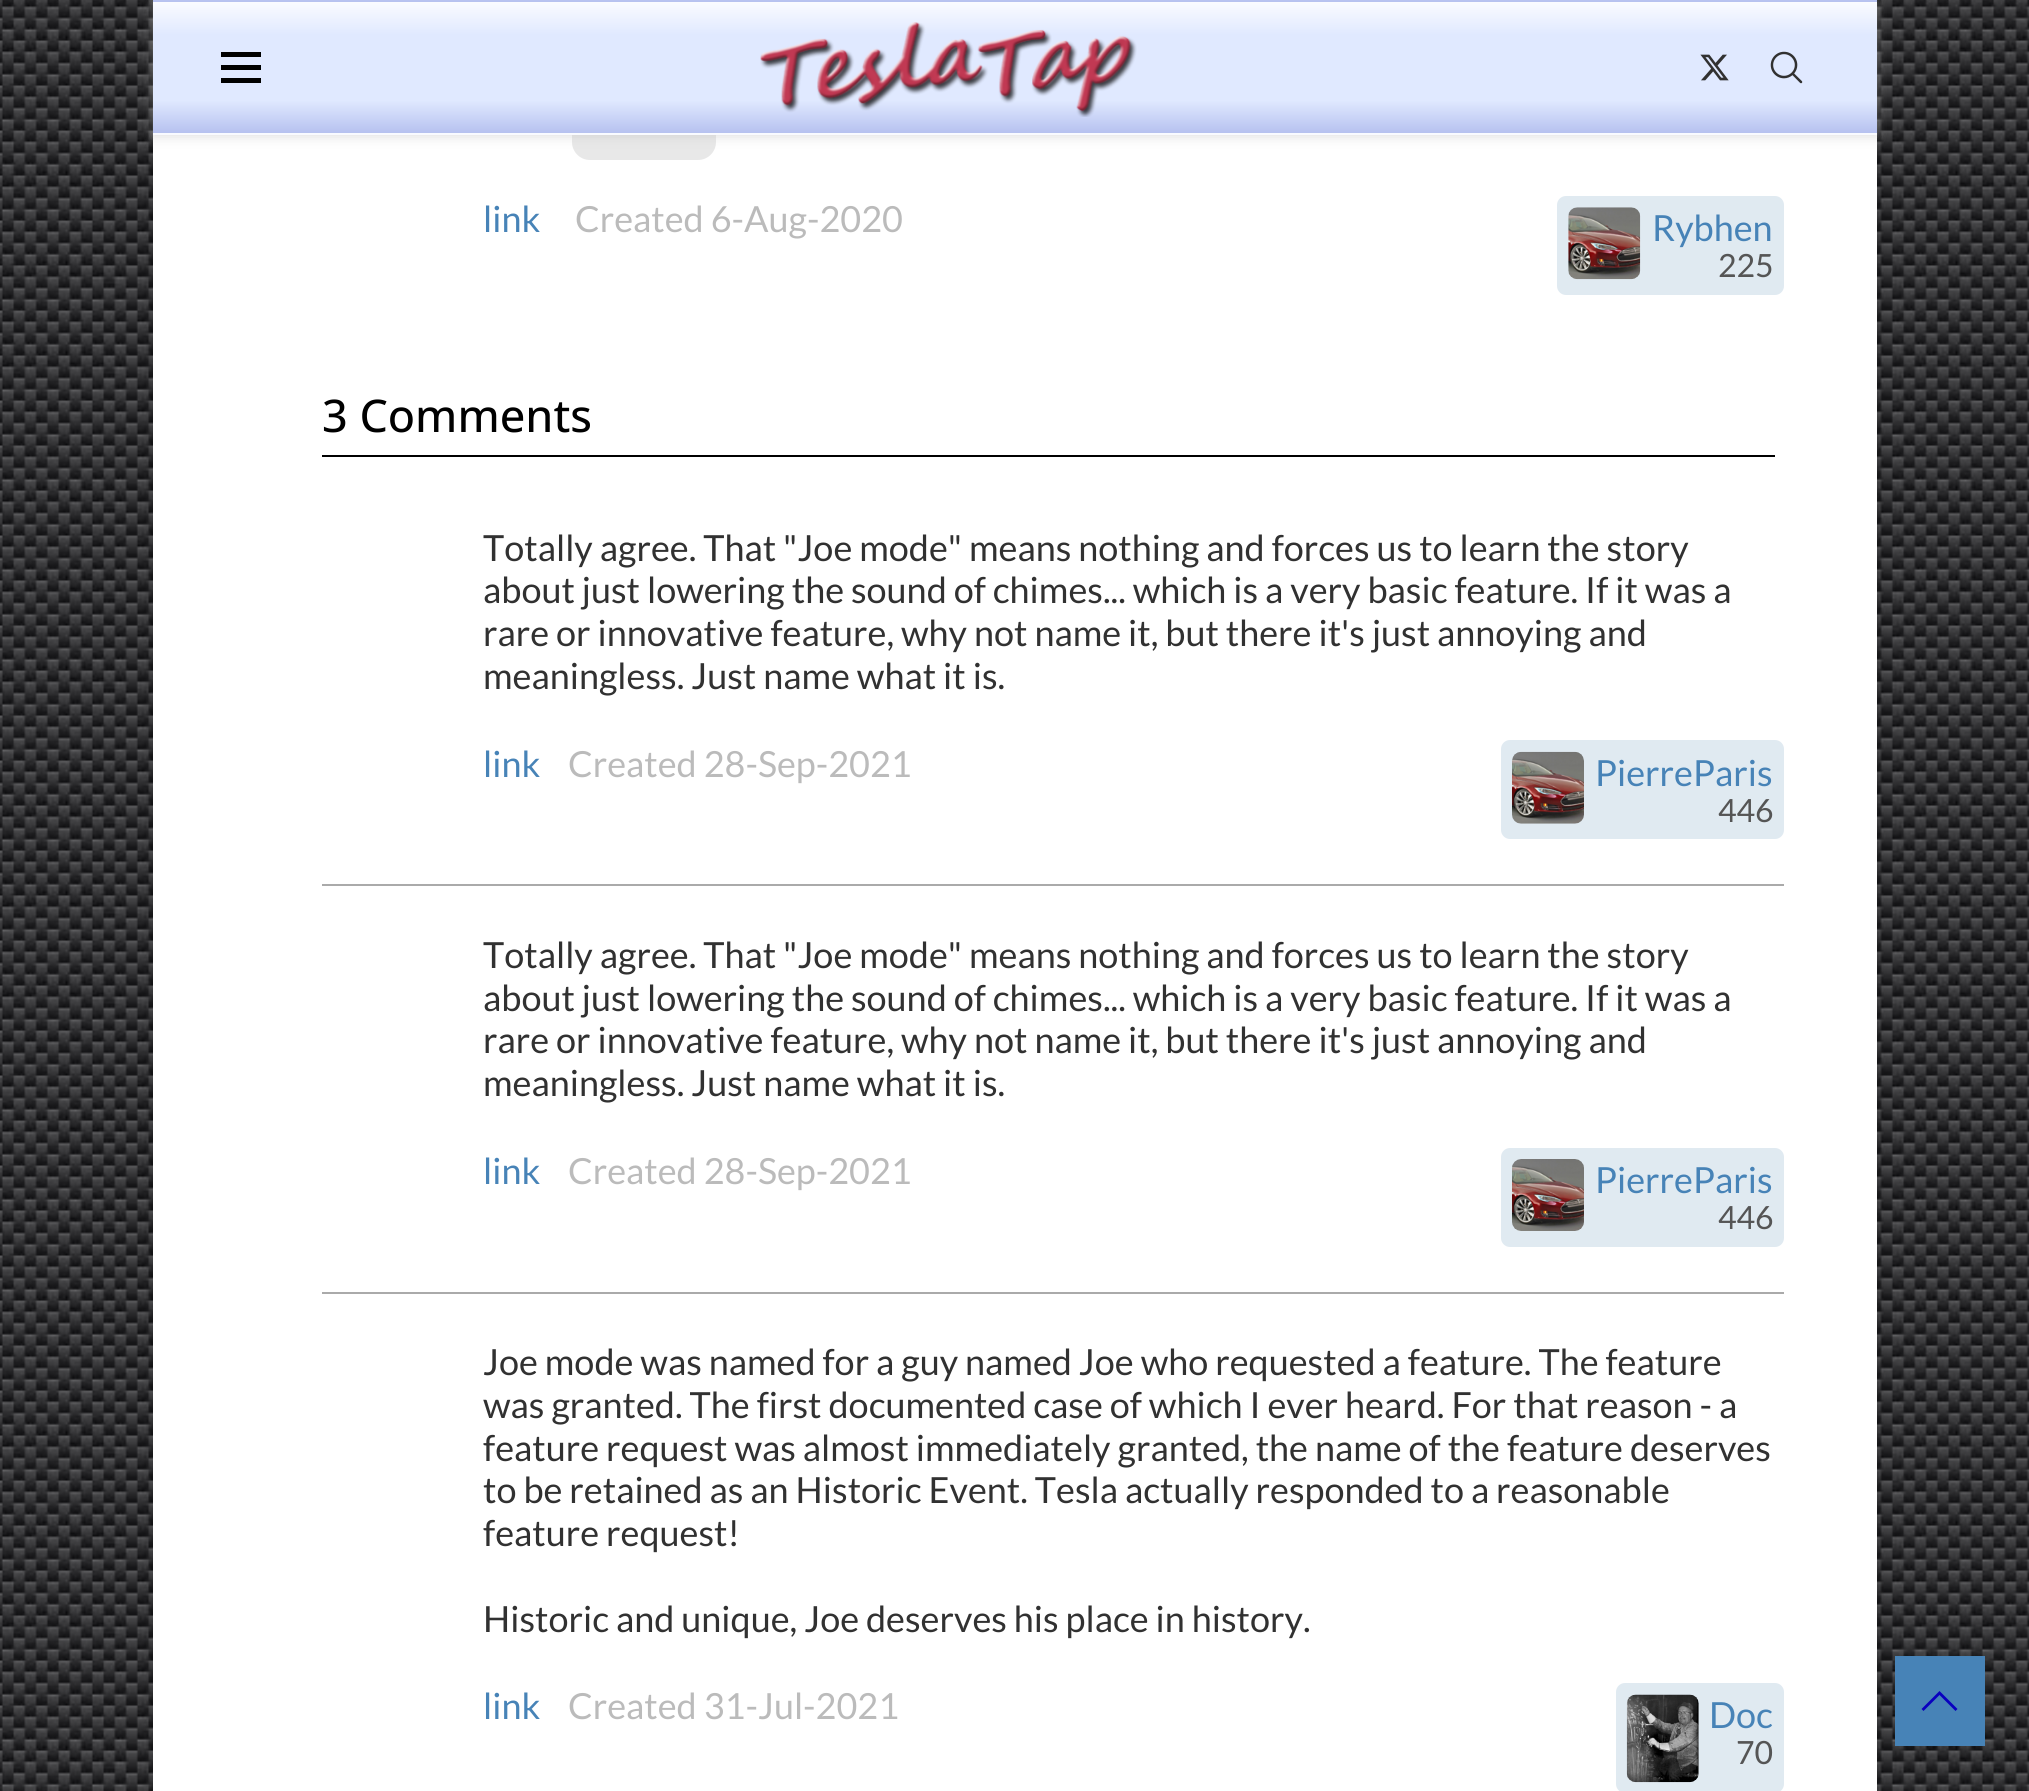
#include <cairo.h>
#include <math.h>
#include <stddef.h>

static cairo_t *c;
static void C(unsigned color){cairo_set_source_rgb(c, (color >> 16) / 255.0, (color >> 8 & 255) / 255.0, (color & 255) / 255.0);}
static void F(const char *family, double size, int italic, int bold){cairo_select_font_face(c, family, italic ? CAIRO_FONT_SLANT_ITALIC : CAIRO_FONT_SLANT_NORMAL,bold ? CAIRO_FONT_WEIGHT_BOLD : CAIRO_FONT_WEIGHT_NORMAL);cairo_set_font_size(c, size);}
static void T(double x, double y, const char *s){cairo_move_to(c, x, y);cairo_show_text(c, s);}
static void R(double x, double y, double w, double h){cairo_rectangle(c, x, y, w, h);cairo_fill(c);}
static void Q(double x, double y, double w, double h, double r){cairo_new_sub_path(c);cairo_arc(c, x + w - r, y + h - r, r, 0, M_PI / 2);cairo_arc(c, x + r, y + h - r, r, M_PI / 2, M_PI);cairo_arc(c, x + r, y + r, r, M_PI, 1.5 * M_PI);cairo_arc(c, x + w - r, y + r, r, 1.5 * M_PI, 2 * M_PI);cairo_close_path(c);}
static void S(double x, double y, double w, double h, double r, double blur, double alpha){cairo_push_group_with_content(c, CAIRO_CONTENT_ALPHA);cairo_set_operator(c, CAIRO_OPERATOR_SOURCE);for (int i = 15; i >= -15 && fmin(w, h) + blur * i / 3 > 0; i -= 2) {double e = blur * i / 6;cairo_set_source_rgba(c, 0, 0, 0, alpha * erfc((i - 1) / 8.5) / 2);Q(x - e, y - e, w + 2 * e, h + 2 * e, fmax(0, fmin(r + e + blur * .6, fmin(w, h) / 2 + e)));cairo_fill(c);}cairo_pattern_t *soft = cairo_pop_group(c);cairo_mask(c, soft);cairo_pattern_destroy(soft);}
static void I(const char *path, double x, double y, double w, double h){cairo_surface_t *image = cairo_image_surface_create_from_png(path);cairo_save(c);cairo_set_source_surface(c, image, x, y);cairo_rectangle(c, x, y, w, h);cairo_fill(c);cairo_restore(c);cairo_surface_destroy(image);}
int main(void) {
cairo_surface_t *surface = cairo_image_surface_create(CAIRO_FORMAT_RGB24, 2029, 1791);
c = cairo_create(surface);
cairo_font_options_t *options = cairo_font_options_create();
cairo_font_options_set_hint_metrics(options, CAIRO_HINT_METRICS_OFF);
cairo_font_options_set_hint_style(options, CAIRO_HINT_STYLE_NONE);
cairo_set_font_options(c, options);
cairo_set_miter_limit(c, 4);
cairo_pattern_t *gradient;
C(0xffffff);
cairo_paint(c);
I("1.png",0,0,2029,1791);
C(0x000000);
S(153,-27,1724,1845,0,9,.2);
C(0xffffff);
R(153,135,1724,1656);
C(0xe8e8e8);
Q(572,110,144,50,18);
cairo_fill(c);
C(0xbebebe);
S(153,2,1724,135,0,5.5,.46);
gradient = cairo_pattern_create_linear(1015,-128,1015,2.3);
cairo_pattern_add_color_stop_rgba(gradient,0,0.98,0.984,1,1);
cairo_pattern_add_color_stop_rgba(gradient,.25,0.878,0.914,1,1);
cairo_pattern_add_color_stop_rgba(gradient,.75,0.878,0.914,1,1);
cairo_pattern_add_color_stop_rgba(gradient,1,0.714,0.757,0.937,1);
cairo_set_source(c,gradient);
cairo_pattern_destroy(gradient);
R(153,0,1724,2);
gradient = cairo_pattern_create_linear(1015,2.2,1015,133);
cairo_pattern_add_color_stop_rgba(gradient,0,0.98,0.984,1,1);
cairo_pattern_add_color_stop_rgba(gradient,.25,0.878,0.914,1,1);
cairo_pattern_add_color_stop_rgba(gradient,.75,0.878,0.914,1,1);
cairo_pattern_add_color_stop_rgba(gradient,1,0.714,0.757,0.937,1);
cairo_set_source(c,gradient);
cairo_pattern_destroy(gradient);
R(153,2,1724,131);
gradient = cairo_pattern_create_linear(1015,133,1015,263);
cairo_pattern_add_color_stop_rgba(gradient,0,0.98,0.984,1,1);
cairo_pattern_add_color_stop_rgba(gradient,.25,0.878,0.914,1,1);
cairo_pattern_add_color_stop_rgba(gradient,.75,0.878,0.914,1,1);
cairo_pattern_add_color_stop_rgba(gradient,1,0.714,0.757,0.937,1);
cairo_set_source(c,gradient);
cairo_pattern_destroy(gradient);
R(153,133,1724,2);
C(0x000000);
R(221,52,40,5);
R(221,65,40,5);
R(221,78,40,5);
I("2.png",760,22,377,95);
I("3.png",1700,54,29,27);
I("4.png",1770,51,33,33);
F("Lato",36,0,0);
C(0x4783b7);
T(483,232,"link");
C(0xbbbbbb);
T(575,232,"Created 6-Aug-2020");
C(0xe0eaf1);
Q(1557,196,227,99,9);
cairo_fill(c);
I("5.png",1568,207,73,73);
C(0x4783b7);
T(1652,241,"Rybhen");
F("Lato",32,0,0);
C(0x555555);
T(1718,277,"225");
C(0x000000);
R(322,455,1453,2);
F("Open Sans Medium",45,0,0);
T(322,432,"3 Comments");
C(0xaaaaaa);
R(322,884,1462,2);
F("Lato",36,0,0);
C(0x313131);
T(483,561,"Totally agree. That \"Joe mode\" means nothing and forces us to learn the story");
T(483,603,"about just lowering the sound of chimes... which is a very basic feature. If it was a");
T(483,646,"rare or innovative feature, why not name it, but there it's just annoying and");
T(483,689,"meaningless. Just name what it is.");
C(0x4783b7);
T(483,777,"link");
C(0xbbbbbb);
T(568,777,"Created 28-Sep-2021");
C(0xe0eaf1);
Q(1501,740,283,99,9);
cairo_fill(c);
I("6.png",1512,751,72,73);
C(0x4783b7);
T(1595,786,"PierreParis");
F("Lato",32,0,0);
C(0x555555);
T(1718,822,"446");
C(0xaaaaaa);
R(322,1292,1462,2);
F("Lato",36,0,0);
C(0x313131);
T(483,968,"Totally agree. That \"Joe mode\" means nothing and forces us to learn the story");
T(483,1011,"about just lowering the sound of chimes... which is a very basic feature. If it was a");
T(483,1053,"rare or innovative feature, why not name it, but there it's just annoying and");
T(483,1096,"meaningless. Just name what it is.");
C(0x4783b7);
T(483,1184,"link");
C(0xbbbbbb);
T(568,1184,"Created 28-Sep-2021");
C(0xe0eaf1);
Q(1501,1148,283,99,9);
cairo_fill(c);
I("7.png",1512,1159,72,72);
C(0x4783b7);
T(1595,1193,"PierreParis");
F("Lato",32,0,0);
C(0x555555);
T(1718,1229,"446");
F("Lato",36,0,0);
C(0x313131);
T(483,1375,"Joe mode was named for a guy named Joe who requested a feature. The feature");
T(483,1418,"was granted. The first documented case of which I ever heard. For that reason - a");
T(483,1461,"feature request was almost immediately granted, the name of the feature deserves");
T(483,1503,"to be retained as an Historic Event. Tesla actually responded to a reasonable");
T(483,1546,"feature request!");
T(483,1632,"Historic and unique, Joe deserves his place in history.");
C(0x4783b7);
T(483,1719,"link");
C(0xbbbbbb);
T(568,1719,"Created 31-Jul-2021");
C(0xe0eaf1);
Q(1616,1683,168,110,9);
cairo_fill(c);
I("8.png",1626,1694,73,89);
C(0x4783b7);
T(1709,1728,"Doc");
F("Lato",32,0,0);
C(0x555555);
T(1736,1764,"70");
C(0x4783b7);
R(1895,1656,90,90);
C(0x0900bf);
cairo_new_path(c);
cairo_move_to(c,1939.5,1691);
cairo_line_to(c,1921.5,1709);
cairo_line_to(c,1923.5,1711);
cairo_line_to(c,1939.5,1695);
cairo_line_to(c,1955.5,1711);
cairo_line_to(c,1957.5,1709);
cairo_close_path(c);
cairo_fill(c);
cairo_surface_write_to_png(surface, "o.png");
cairo_font_options_destroy(options);
cairo_destroy(c);
cairo_surface_destroy(surface);
return 0;
}
